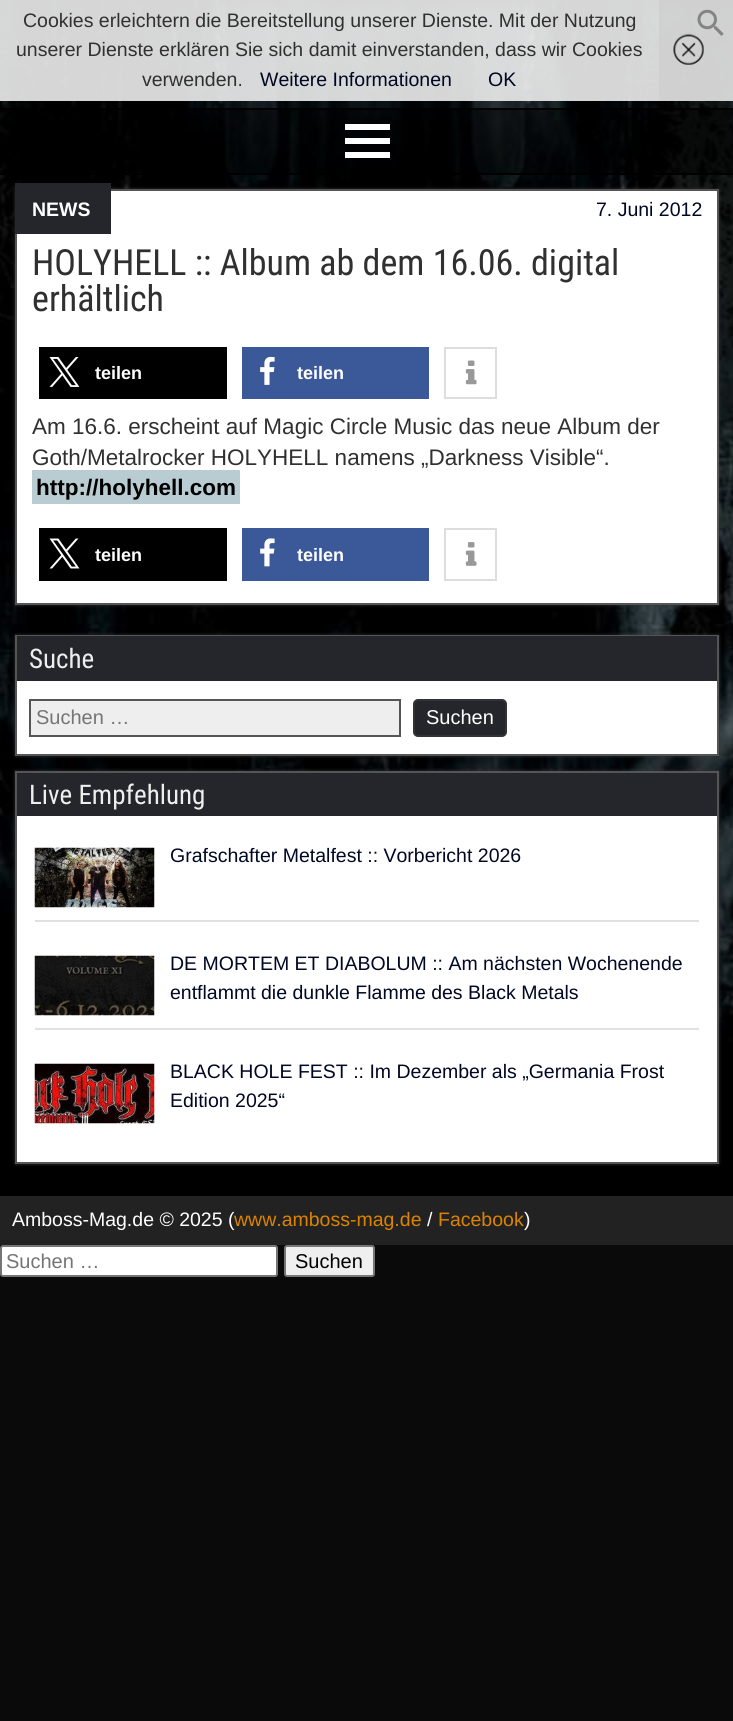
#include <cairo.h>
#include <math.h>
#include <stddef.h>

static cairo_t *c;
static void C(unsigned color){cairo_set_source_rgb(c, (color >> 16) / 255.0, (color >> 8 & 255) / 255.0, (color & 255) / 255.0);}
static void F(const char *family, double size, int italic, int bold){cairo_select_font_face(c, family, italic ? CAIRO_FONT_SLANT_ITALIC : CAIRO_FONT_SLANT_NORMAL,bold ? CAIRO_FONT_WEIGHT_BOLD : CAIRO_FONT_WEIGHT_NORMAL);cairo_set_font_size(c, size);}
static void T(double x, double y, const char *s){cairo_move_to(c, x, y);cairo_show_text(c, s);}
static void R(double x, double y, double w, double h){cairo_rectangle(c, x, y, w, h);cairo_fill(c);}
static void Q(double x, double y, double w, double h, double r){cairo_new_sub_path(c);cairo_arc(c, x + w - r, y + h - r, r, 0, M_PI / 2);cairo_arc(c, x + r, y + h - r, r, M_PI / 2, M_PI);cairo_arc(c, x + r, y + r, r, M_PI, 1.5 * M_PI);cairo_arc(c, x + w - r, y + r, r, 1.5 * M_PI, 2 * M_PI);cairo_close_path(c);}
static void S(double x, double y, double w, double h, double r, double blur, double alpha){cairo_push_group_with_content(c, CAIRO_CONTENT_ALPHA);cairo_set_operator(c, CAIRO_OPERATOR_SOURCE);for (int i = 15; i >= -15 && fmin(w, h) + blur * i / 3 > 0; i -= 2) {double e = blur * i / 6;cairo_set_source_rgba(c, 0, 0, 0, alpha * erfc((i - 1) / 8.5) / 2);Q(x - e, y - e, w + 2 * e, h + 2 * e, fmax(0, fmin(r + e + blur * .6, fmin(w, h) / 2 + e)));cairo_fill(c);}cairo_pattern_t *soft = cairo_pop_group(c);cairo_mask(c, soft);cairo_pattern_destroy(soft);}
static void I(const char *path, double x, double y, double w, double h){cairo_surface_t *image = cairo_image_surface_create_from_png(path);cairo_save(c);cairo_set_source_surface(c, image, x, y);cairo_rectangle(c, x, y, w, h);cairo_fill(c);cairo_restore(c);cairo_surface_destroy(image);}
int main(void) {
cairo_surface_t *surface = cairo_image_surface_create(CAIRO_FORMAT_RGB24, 733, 1721);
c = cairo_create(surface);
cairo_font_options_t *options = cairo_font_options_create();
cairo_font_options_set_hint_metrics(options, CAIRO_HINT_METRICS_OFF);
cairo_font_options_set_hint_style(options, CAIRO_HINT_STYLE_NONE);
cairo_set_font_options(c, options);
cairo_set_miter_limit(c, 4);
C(0x0a0a0a);
cairo_paint(c);
I("1.png",0,0,733,1194);
cairo_set_source_rgba(c,0.933,0.933,0.933,0.9);
R(0,0,733,101);
F("Liberation Sans",19.5,0,0);
C(0x303030);
T(23,27,"Cookies erleichtern die Bereitstellung unserer Dienste. Mit der Nutzung");
T(16,56,"unserer Dienste erklären Sie sich damit einverstanden, dass wir Cookies");
T(142,86,"verwenden.");
C(0x000723);
T(260,86,"Weitere Informationen");
T(488,86,"OK");
cairo_set_source_rgba(c,0.8,0.8,0.8,0.6);
R(659,0,74,101);
I("2.png",673,33,31,32);
I("3.png",697,9,27,27);
C(0x000000);
R(0,108,733,2);
cairo_set_source_rgba(c,0,0,0,0.5);
R(0,110,733,63);
C(0x000000);
R(0,173,733,2);
C(0xffffff);
cairo_new_path(c);
cairo_move_to(c,345,158);
cairo_line_to(c,345,152);
cairo_line_to(c,390,152);
cairo_line_to(c,390,158);
cairo_close_path(c);
cairo_move_to(c,345,124);
cairo_line_to(c,390,124);
cairo_line_to(c,390,130);
cairo_line_to(c,345,130);
cairo_close_path(c);
cairo_move_to(c,345,144);
cairo_line_to(c,345,138);
cairo_line_to(c,390,138);
cairo_line_to(c,390,144);
cairo_close_path(c);
cairo_fill(c);
C(0x333333);
S(15,189,704,416,0,1.5,1);
C(0xffffff);
cairo_rectangle(c,16,190,702,414);
cairo_fill_preserve(c);
C(0x555555);
cairo_stroke(c);
C(0x25262b);
R(15,183,96,51);
F("Liberation Sans",19.5,0,1);
C(0xffffff);
T(32,216,"NEWS");
F("Liberation Sans",19.5,0,0);
C(0x000723);
T(596,216,"7. Juni 2012");
F("Roboto Condensed",36,0,0);
C(0x303030);
T(32,275,"HOLYHELL :: Album ab dem 16.06. digital");
T(32,311,"erhältlich");
C(0x000000);
R(39,347,188,52);
I("4.png",49,357,31,30);
F("Liberation Sans",18,0,1);
C(0xffffff);
T(95,379,"teilen");
C(0x3b5998);
R(242,347,187,52);
I("5.png",260,356,15,29);
C(0xffffff);
T(297,379,"teilen");
cairo_rectangle(c,445,348,51,50);
C(0xdddddd);
cairo_stroke(c);
I("6.png",465,360,12,25);
F("Liberation Sans",22.5,0,0);
C(0x303030);
T(32,434,"Am 16.6. erscheint auf Magic Circle Music das neue Album der");
T(32,465,"Goth/Metalrocker HOLYHELL namens „Darkness Visible“.");
C(0xb9ccd2);
R(32,470,208,34);
F("Liberation Sans",22.5,0,1);
C(0x000000);
T(36,495,"http://holyhell.com");
R(39,528,188,53);
I("7.png",49,538,31,31);
F("Liberation Sans",18,0,1);
C(0xffffff);
T(95,561,"teilen");
C(0x3b5998);
R(242,528,187,53);
I("8.png",260,538,15,29);
C(0xffffff);
T(297,561,"teilen");
cairo_rectangle(c,445,529,51,51);
C(0xdddddd);
cairo_stroke(c);
I("9.png",465,542,12,24);
C(0x333333);
S(15,635,704,121,0,1.5,1);
C(0xffffff);
R(17,681,700,73);
cairo_rectangle(c,16,636,702,119);
C(0x555555);
cairo_stroke(c);
C(0x25262b);
R(17,636,700,45);
F("Roboto Condensed",27,0,0);
C(0xeeeeee);
T(29,668,"Suche");
cairo_rectangle(c,30,700,370,36);
cairo_fill_preserve(c);
C(0x555555);
cairo_stroke(c);
F("Liberation Sans",20,0,0);
C(0x757575);
T(36,724,"Suchen …");
C(0x25262b);
Q(414,700,92,36,4);
cairo_fill_preserve(c);
C(0x333333);
cairo_stroke(c);
C(0xffffff);
T(426,724,"Suchen");
C(0x333333);
S(15,771,704,393,0,1.5,1);
C(0xffffff);
R(17,816,700,346);
cairo_rectangle(c,16,772,702,391);
C(0x555555);
cairo_stroke(c);
C(0x25262b);
R(17,773,700,43);
F("Roboto Condensed",27,0,0);
C(0xeeeeee);
T(29,804,"Live Empfehlung");
C(0xe0e0e0);
R(35,920,664,2);
I("10.png",34,847,121,61);
F("Liberation Sans",19.5,0,0);
C(0x000723);
T(170,862,"Grafschafter Metalfest :: Vorbericht 2026");
C(0xe0e0e0);
R(35,1028,664,2);
I("11.png",34,955,121,61);
C(0x000723);
T(170,970,"DE MORTEM ET DIABOLUM :: Am nächsten Wochenende");
T(170,999,"entflammt die dunkle Flamme des Black Metals");
I("12.png",34,1063,121,61);
T(170,1078,"BLACK HOLE FEST :: Im Dezember als „Germania Frost");
T(170,1107,"Edition 2025“");
C(0x222222);
R(0,1196,733,49);
C(0x000000);
R(0,1194,733,2);
C(0xffffff);
T(12,1226,"Amboss-Mag.de © 2025 (");
C(0xdc8300);
T(234,1226,"www.amboss-mag.de");
C(0xffffff);
T(427,1226,"/");
C(0xdc8300);
T(438,1226,"Facebook");
C(0xffffff);
T(524,1226,")");
Q(1,1246,276,30,2);
cairo_fill_preserve(c);
C(0x767676);
cairo_stroke(c);
F("Liberation Sans",20,0,0);
C(0x757575);
T(6,1268,"Suchen …");
C(0xefefef);
Q(285,1246,89,30,2);
cairo_fill_preserve(c);
C(0x767676);
cairo_stroke(c);
C(0x000000);
T(295,1268,"Suchen");
cairo_surface_write_to_png(surface, "o.png");
cairo_font_options_destroy(options);
cairo_destroy(c);
cairo_surface_destroy(surface);
return 0;
}
